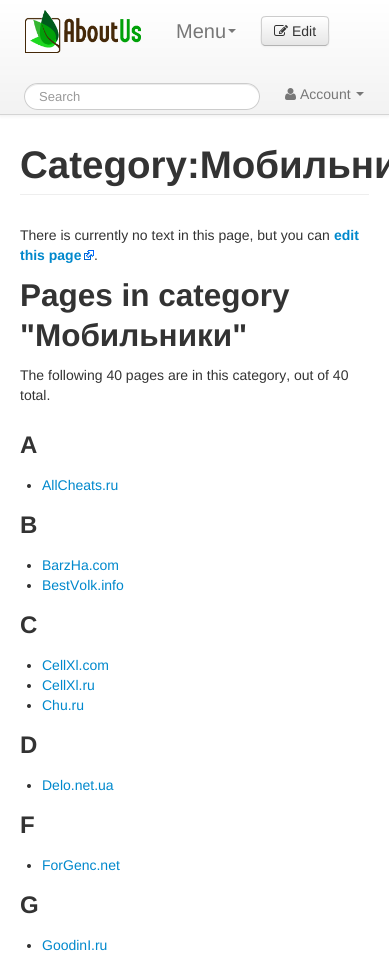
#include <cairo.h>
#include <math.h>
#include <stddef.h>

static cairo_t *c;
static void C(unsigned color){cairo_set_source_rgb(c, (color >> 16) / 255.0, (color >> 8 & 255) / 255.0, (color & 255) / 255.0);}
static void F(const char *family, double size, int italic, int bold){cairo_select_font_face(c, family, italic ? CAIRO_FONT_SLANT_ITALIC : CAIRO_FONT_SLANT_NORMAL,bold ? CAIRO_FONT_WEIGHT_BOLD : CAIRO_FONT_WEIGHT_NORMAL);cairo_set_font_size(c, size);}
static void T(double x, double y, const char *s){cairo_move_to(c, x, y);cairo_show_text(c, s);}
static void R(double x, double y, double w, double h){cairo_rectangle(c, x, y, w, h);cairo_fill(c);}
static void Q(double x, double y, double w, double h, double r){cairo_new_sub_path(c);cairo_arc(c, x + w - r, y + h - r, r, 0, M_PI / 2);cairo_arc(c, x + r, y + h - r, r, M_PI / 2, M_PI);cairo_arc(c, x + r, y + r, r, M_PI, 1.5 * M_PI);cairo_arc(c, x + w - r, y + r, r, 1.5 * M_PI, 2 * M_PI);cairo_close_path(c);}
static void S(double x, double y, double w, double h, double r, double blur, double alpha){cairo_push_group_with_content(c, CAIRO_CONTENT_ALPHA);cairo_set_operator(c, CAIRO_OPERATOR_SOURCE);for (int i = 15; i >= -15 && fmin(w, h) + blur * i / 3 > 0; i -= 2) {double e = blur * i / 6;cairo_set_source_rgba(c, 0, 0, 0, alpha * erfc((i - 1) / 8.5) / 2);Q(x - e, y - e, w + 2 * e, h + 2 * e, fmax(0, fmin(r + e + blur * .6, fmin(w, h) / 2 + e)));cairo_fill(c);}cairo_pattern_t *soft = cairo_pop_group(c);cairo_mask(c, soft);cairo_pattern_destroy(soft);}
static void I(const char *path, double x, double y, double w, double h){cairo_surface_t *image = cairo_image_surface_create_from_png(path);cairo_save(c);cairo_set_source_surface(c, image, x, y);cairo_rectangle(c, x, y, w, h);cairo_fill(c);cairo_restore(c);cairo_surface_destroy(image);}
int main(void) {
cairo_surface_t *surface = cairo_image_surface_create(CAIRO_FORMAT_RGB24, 389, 965);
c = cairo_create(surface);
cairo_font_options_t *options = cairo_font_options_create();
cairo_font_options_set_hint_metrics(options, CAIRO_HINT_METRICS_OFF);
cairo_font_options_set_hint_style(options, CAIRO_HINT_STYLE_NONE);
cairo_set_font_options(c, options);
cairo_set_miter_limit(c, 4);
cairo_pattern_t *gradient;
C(0xffffff);
cairo_paint(c);
C(0x000000);
S(0,1,389,115,0,2,.07);
gradient = cairo_pattern_create_linear(195,0,195,114);
cairo_pattern_add_color_stop_rgba(gradient,0,1,1,1,1);
cairo_pattern_add_color_stop_rgba(gradient,1,0.949,0.949,0.949,1);
cairo_set_source(c,gradient);
cairo_pattern_destroy(gradient);
R(0,0,389,114);
C(0xd4d4d4);
R(0,114,389,1);
I("1.png",25,10,116,43);
F("Liberation Sans",20,0,0);
C(0x777777);
T(176,38,"Menu");
cairo_new_path(c);
cairo_move_to(c,228,29);
cairo_line_to(c,236,29);
cairo_line_to(c,232,33);
cairo_close_path(c);
cairo_fill(c);
C(0x000000);
S(261,17,68,30,4,1,.05);
C(0xf5f5f5);
Q(261,16,68,30,4);
cairo_fill(c);
cairo_save(c);
Q(261,16,68,30,4);
cairo_clip(c);
gradient = cairo_pattern_create_linear(295,17,295,45);
cairo_pattern_add_color_stop_rgba(gradient,0,1,1,1,1);
cairo_pattern_add_color_stop_rgba(gradient,1,0.902,0.902,0.902,1);
cairo_set_source(c,gradient);
cairo_pattern_destroy(gradient);
R(261,17,68,28);
cairo_restore(c);
cairo_new_path(c);
cairo_move_to(c,327.5,44.5);
cairo_line_to(c,325.5,45.5);
cairo_line_to(c,264.5,45.5);
cairo_line_to(c,262.5,44.5);
C(0xb3b3b3);
cairo_set_line_width(c,1);
cairo_stroke(c);
cairo_new_path(c);
cairo_move_to(c,262.5,44.5);
cairo_curve_to(c,260.5,42.5,261.5,34,261.5,31);
cairo_curve_to(c,261.5,15,259,16.5,275,16.5);
cairo_line_to(c,315,16.5);
cairo_curve_to(c,331,16.5,328.5,15,328.5,31);
cairo_curve_to(c,328.5,34,329.5,42.5,327.5,44.5);
C(0xcccccc);
cairo_stroke(c);
I("2.png",274,25,14,11);
F("Liberation Sans",14,0,0);
C(0x333333);
T(292,36,"Edit");
C(0xffffff);
Q(24,83,236,27,13.5);
cairo_fill(c);
C(0xececec);
cairo_new_path(c);
cairo_move_to(c,38,85);
cairo_line_to(c,246,85);
cairo_curve_to(c,253,85,259,91,259,97);
cairo_curve_to(c,259,90,254,84,246,84);
cairo_line_to(c,38,84);
cairo_curve_to(c,30,84,25,90,25,97);
cairo_curve_to(c,25,91,31,85,38,85);
cairo_close_path(c);
cairo_fill(c);
Q(24.5,83.5,235,26,13);
C(0xcccccc);
cairo_stroke(c);
F("Liberation Sans",13,0,0);
C(0x999999);
T(39,101,"Search");
I("3.png",285,88,11,12);
F("Liberation Sans",14,0,0);
C(0x777777);
T(300,99,"Account");
cairo_new_path(c);
cairo_move_to(c,356,92);
cairo_line_to(c,364,92);
cairo_line_to(c,360,96);
cairo_close_path(c);
cairo_fill(c);
C(0xeeeeee);
R(20,194,349,1);
F("Liberation Sans",38.5,0,1);
C(0x333333);
T(20,178,"Category:Мобильни");
F("Liberation Sans",14,0,0);
T(20,240,"There is currently no text in this page, but you can");
F("Liberation Sans",14,0,1);
C(0x0088cc);
T(334,240,"edit");
T(20,260,"this page");
I("4.png",84,250,10,10);
F("Liberation Sans",14,0,0);
C(0x333333);
T(94,260,".");
F("Liberation Sans",31.5,0,1);
T(20,306,"Pages in category");
T(20,346,"\"Мобильники\"");
F("Liberation Sans",14,0,0);
T(20,380,"The following 40 pages are in this category, out of 40");
T(20,400,"total.");
F("Liberation Sans",24,0,1);
T(20,453,"A");
cairo_new_path(c);
cairo_arc(c,29,486,2,0,2 * M_PI);
cairo_fill(c);
F("Liberation Sans",14,0,0);
C(0x0088cc);
T(42,490,"AllCheats.ru");
F("Liberation Sans",24,0,1);
C(0x333333);
T(20,533,"B");
cairo_new_path(c);
cairo_arc(c,29,566,2,0,2 * M_PI);
cairo_fill(c);
F("Liberation Sans",14,0,0);
C(0x0088cc);
T(42,570,"BarzHa.com");
C(0x333333);
cairo_new_path(c);
cairo_arc(c,29,586,2,0,2 * M_PI);
cairo_fill(c);
C(0x0088cc);
T(42,590,"BestVolk.info");
F("Liberation Sans",24,0,1);
C(0x333333);
T(20,633,"C");
cairo_new_path(c);
cairo_arc(c,29,666,2,0,2 * M_PI);
cairo_fill(c);
F("Liberation Sans",14,0,0);
C(0x0088cc);
T(42,670,"CellXl.com");
C(0x333333);
cairo_new_path(c);
cairo_arc(c,29,686,2,0,2 * M_PI);
cairo_fill(c);
C(0x0088cc);
T(42,690,"CellXl.ru");
C(0x333333);
cairo_new_path(c);
cairo_arc(c,29,706,2,0,2 * M_PI);
cairo_fill(c);
C(0x0088cc);
T(42,710,"Chu.ru");
F("Liberation Sans",24,0,1);
C(0x333333);
T(20,753,"D");
cairo_new_path(c);
cairo_arc(c,29,786,2,0,2 * M_PI);
cairo_fill(c);
F("Liberation Sans",14,0,0);
C(0x0088cc);
T(42,790,"Delo.net.ua");
F("Liberation Sans",24,0,1);
C(0x333333);
T(20,833,"F");
cairo_new_path(c);
cairo_arc(c,29,866,2,0,2 * M_PI);
cairo_fill(c);
F("Liberation Sans",14,0,0);
C(0x0088cc);
T(42,870,"ForGenc.net");
F("Liberation Sans",24,0,1);
C(0x333333);
T(20,913,"G");
cairo_new_path(c);
cairo_arc(c,29,946,2,0,2 * M_PI);
cairo_fill(c);
F("Liberation Sans",14,0,0);
C(0x0088cc);
T(42,950,"GoodinI.ru");
cairo_surface_write_to_png(surface, "o.png");
cairo_font_options_destroy(options);
cairo_destroy(c);
cairo_surface_destroy(surface);
return 0;
}
